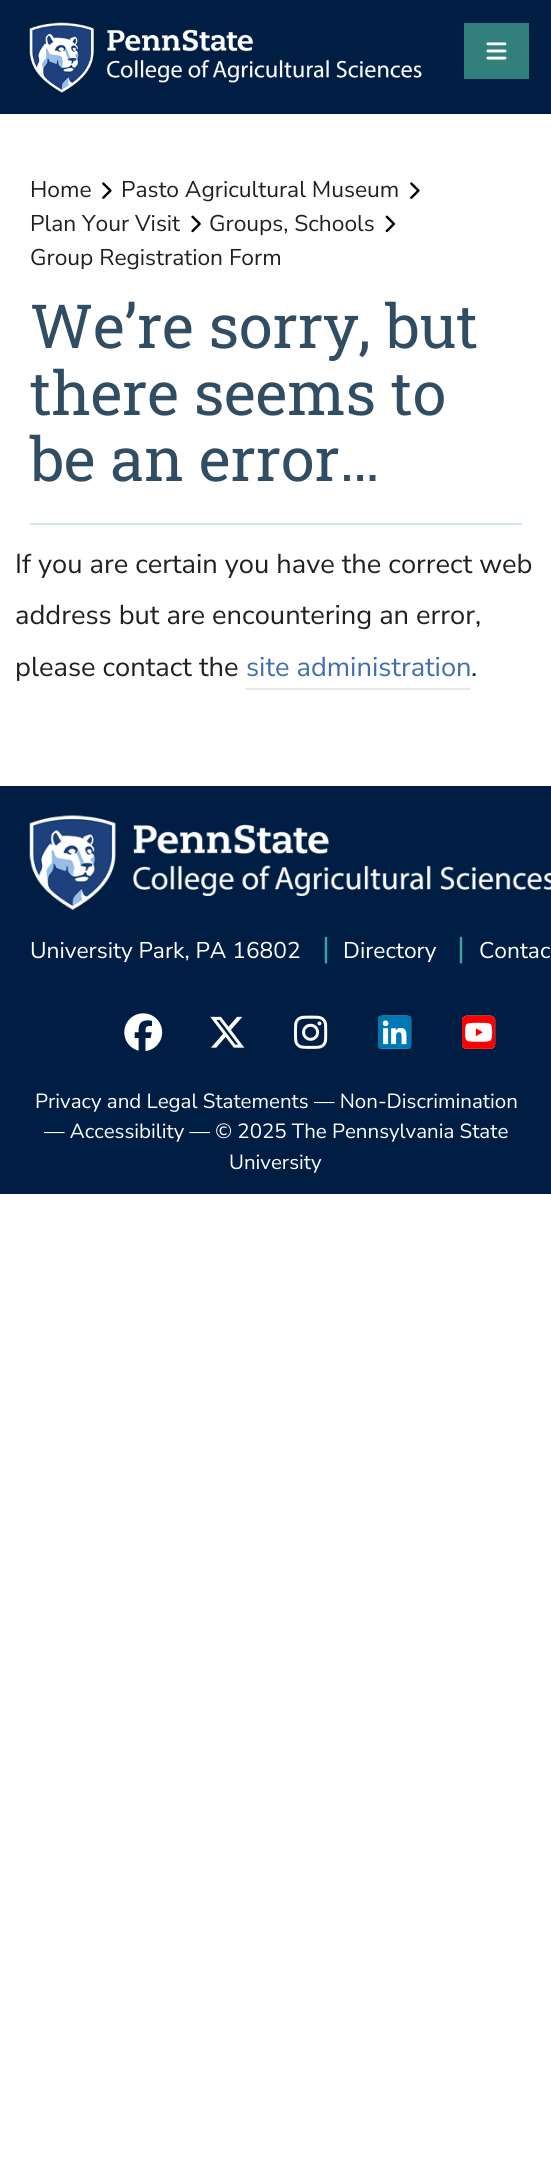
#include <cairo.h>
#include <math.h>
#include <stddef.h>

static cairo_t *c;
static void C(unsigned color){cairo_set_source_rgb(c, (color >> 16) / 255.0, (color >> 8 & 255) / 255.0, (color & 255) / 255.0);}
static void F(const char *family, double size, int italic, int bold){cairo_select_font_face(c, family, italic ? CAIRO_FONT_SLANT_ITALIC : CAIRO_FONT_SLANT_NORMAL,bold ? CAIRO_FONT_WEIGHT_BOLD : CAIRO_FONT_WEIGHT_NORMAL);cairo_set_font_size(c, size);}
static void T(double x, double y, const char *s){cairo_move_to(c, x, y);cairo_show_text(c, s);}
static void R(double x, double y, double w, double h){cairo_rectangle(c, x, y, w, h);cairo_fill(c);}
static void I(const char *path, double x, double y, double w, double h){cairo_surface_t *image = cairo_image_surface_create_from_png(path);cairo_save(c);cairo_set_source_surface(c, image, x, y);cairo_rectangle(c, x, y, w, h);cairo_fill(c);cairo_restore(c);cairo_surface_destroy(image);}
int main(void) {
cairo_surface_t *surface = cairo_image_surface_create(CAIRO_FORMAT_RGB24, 551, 2171);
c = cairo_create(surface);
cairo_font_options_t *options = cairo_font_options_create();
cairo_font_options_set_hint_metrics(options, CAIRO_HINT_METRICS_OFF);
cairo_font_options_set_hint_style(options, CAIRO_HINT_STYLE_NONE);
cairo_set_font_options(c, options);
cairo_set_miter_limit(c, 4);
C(0xffffff);
cairo_paint(c);
C(0x001e44);
R(0,0,551,114);
I("1.png",29,22,393,71);
C(0x32807d);
R(464,23,65,56);
I("2.png",486,42,21,18);
C(0xcfe8e7);
R(30,523,492,2);
F("Nunito Sans",22.75,0,0);
C(0x231e20);
T(30,197,"Home");
I("3.png",102,182,10,17);
T(121,197,"Pasto Agricultural Museum");
I("3.png",410,182,10,17);
T(30,231,"Plan Your Visit");
I("4.png",191,215,10,18);
T(209,231,"Groups, Schools");
I("5.png",385,215,11,18);
T(30,265,"Group Registration Form");
F("Roboto Slab",60.75,0,0);
C(0x314d64);
T(30,348,"We’re sorry, but");
T(30,415,"there seems to");
T(30,481,"be an error…");
F("Nunito Sans",27.25,0,0);
C(0x231e20);
T(15,573,"If you are certain you have the correct web");
T(15,624,"address but are encountering an error,");
T(15,676,"please contact the");
C(0x406eae);
T(246,676,"site administration");
C(0xe9e9e9);
R(245,688,226,2);
C(0x231e20);
T(471,676,".");
C(0x001e44);
R(0,786,551,408);
I("6.png",29,815,522,95);
F("Nunito Sans",22.75,0,0);
C(0xffffff);
T(30,958,"University Park, PA 16802");
F("Nunito Sans",30,0,0);
C(0x3ea39e);
T(322,958,"|");
F("Nunito Sans",22.75,0,0);
C(0xffffff);
T(343,958,"Directory");
F("Nunito Sans",30,0,0);
C(0x3ea39e);
T(457,958,"|");
F("Nunito Sans",22.75,0,0);
C(0xffffff);
T(479,958,"Contac");
I("7.png",124,1013,39,38);
I("8.png",210,1016,35,32);
I("9.png",294,1015,34,34);
I("10.png",378,1015,34,34);
I("11.png",378,1015,34,34);
I("10.png",462,1015,34,34);
I("12.png",462,1015,34,34);
F("Nunito Sans",20.5,0,0);
T(35,1108,"Privacy and Legal Statements — Non-Discrimination");
T(44,1138,"— Accessibility — © 2025 The Pennsylvania State");
T(229,1169,"University");
cairo_surface_write_to_png(surface, "o.png");
cairo_font_options_destroy(options);
cairo_destroy(c);
cairo_surface_destroy(surface);
return 0;
}
